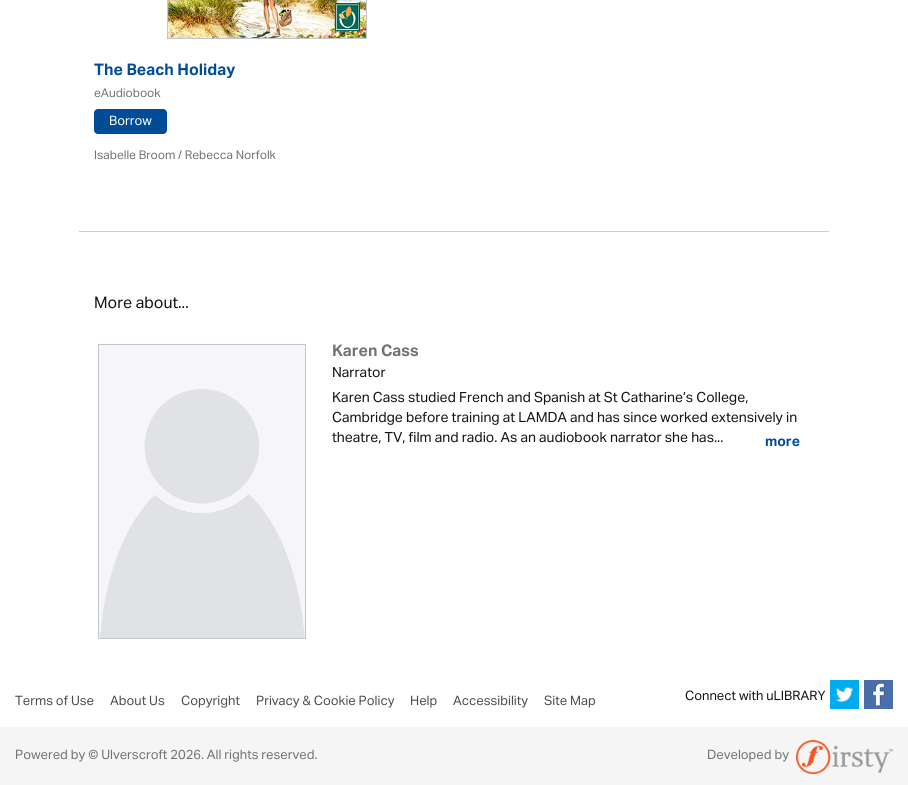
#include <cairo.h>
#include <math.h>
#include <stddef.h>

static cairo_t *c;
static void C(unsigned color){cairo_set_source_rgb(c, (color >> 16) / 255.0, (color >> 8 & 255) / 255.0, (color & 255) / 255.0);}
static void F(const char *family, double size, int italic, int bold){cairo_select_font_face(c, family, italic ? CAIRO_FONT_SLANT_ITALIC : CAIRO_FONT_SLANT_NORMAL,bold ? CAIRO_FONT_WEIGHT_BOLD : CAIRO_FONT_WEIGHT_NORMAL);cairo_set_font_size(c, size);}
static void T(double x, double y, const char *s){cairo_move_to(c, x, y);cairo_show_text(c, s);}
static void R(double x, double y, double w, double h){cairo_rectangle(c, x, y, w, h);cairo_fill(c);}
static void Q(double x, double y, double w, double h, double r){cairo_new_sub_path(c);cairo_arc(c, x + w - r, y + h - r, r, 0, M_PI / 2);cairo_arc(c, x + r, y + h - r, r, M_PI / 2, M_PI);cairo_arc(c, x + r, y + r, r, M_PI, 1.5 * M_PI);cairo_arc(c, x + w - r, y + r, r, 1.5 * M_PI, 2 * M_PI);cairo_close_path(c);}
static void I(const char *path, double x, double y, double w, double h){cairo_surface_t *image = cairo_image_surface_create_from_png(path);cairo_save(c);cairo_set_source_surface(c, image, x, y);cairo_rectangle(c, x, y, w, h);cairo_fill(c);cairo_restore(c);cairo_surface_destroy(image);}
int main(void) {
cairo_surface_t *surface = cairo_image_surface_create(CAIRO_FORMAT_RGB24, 908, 785);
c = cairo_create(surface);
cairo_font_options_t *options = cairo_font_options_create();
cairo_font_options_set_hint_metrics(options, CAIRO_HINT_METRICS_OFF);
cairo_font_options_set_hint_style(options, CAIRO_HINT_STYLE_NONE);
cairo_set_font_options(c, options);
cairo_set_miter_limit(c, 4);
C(0xffffff);
cairo_paint(c);
C(0xcccccc);
R(79,231,750,1);
cairo_rectangle(c,167.5,-.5,199,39);
C(0xc1c5ce);
cairo_set_line_width(c,1);
cairo_stroke(c);
I("1.png",168,0,198,38);
F("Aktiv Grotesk",16,0,1);
C(0x004c97);
T(94,75,"The Beach Holiday");
F("Aktiv Grotesk",12,0,0);
C(0x737373);
T(94,97,"eAudiobook");
C(0x004c97);
Q(94,109,73,25,4);
cairo_fill(c);
F("Aktiv Grotesk",13,0,0);
C(0xffffff);
T(109,125,"Borrow");
F("Aktiv Grotesk",12,0,0);
C(0x737373);
T(94,159,"Isabelle Broom / Rebecca Norfolk");
F("Aktiv Grotesk",16,0,0);
C(0x141414);
T(94,308,"More about...");
cairo_rectangle(c,98.5,344.5,207,294);
C(0xc1c5ce);
cairo_stroke(c);
I("2.png",99,345,206,293);
F("Aktiv Grotesk",16,0,1);
C(0x737373);
T(332,356,"Karen Cass");
F("Aktiv Grotesk",14,0,0);
C(0x141414);
T(332,377,"Narrator");
T(332,402,"Karen Cass studied French and Spanish at St Catharine’s College,");
T(332,422,"Cambridge before training at LAMDA and has since worked extensively in");
T(332,442,"theatre, TV, film and radio. As an audiobook narrator she has...");
F("Aktiv Grotesk",14,0,1);
C(0x004c97);
T(765,446,"more");
F("Aktiv Grotesk",13,0,0);
C(0x4e4e4e);
T(15,705,"Terms of Use");
T(110,705,"About Us");
T(181,705,"Copyright");
T(256,705,"Privacy & Cookie Policy");
T(410,705,"Help");
T(453,705,"Accessibility");
T(544,705,"Site Map");
C(0x141414);
T(685,700,"Connect with uLIBRARY");
I("3.png",830,680,29,29);
I("4.png",864,680,29,29);
C(0xf5f5f5);
R(0,727,908,58);
C(0x737373);
T(15,759,"Powered by © Ulverscroft 2026. All rights reserved.");
T(707,759,"Developed by");
I("5.png",796,740,97,34);
cairo_surface_write_to_png(surface, "o.png");
cairo_font_options_destroy(options);
cairo_destroy(c);
cairo_surface_destroy(surface);
return 0;
}
